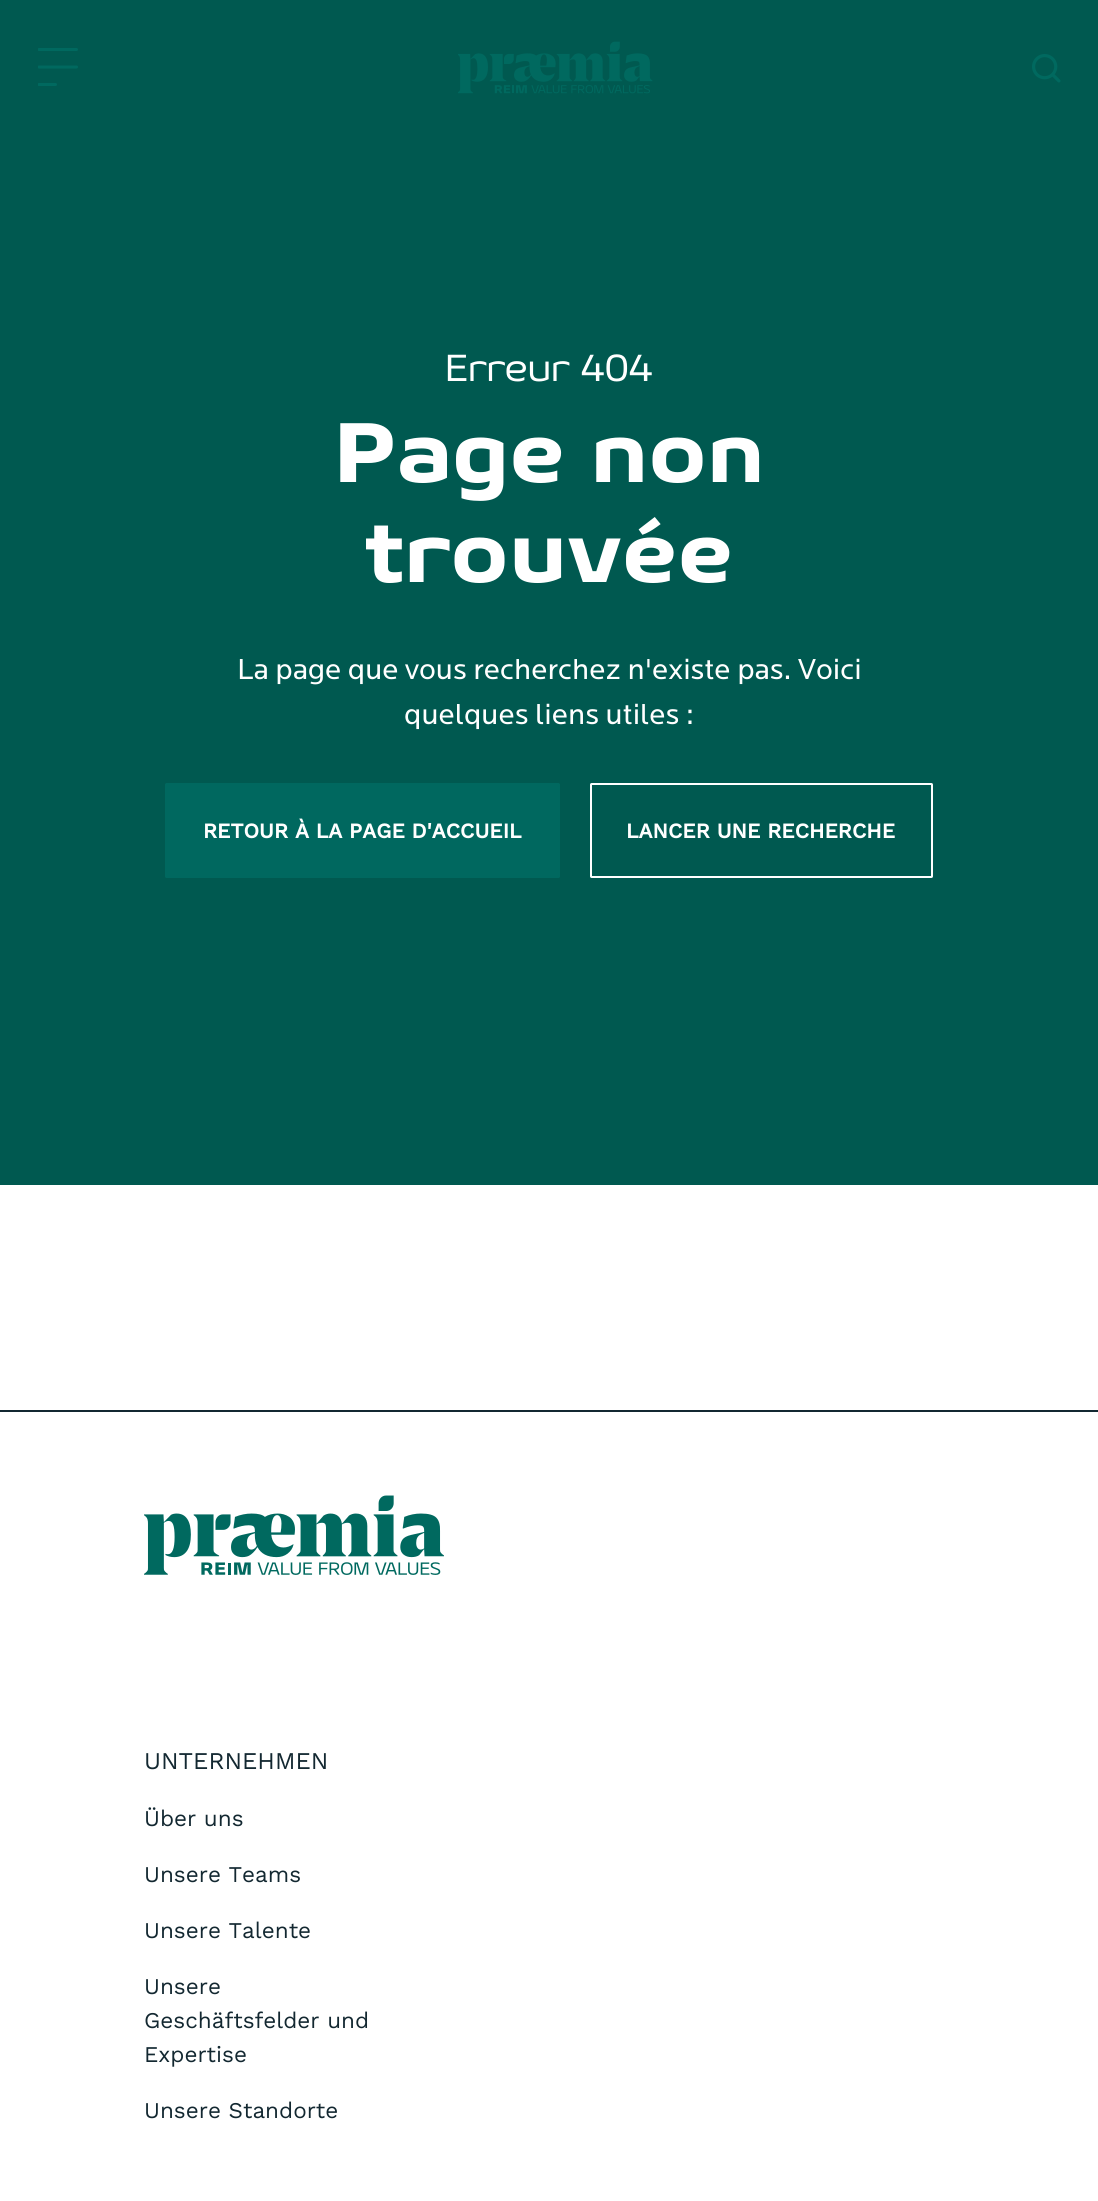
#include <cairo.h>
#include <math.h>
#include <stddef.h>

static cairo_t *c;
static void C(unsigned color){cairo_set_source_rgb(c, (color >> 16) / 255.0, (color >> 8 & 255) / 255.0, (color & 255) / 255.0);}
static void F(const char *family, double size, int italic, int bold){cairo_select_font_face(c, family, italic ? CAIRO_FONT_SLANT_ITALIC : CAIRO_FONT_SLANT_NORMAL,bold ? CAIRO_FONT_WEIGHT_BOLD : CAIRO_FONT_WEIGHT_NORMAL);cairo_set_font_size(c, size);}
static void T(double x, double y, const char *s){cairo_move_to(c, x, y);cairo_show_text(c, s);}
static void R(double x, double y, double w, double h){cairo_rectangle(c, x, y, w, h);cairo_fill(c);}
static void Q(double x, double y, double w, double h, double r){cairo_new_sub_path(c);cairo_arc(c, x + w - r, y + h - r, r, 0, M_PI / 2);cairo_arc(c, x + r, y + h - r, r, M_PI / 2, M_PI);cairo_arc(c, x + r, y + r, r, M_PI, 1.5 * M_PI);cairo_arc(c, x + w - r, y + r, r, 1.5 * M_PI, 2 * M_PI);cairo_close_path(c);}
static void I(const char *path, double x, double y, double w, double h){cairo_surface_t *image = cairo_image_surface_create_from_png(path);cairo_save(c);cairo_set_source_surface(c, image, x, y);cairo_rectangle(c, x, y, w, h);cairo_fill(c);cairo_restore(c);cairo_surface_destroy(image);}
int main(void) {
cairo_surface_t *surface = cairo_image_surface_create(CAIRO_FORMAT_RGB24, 1098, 2201);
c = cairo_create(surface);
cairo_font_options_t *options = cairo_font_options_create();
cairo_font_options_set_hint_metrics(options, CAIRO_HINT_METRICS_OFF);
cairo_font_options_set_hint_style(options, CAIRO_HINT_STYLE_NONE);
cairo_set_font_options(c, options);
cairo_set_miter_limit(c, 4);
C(0xffffff);
cairo_paint(c);
C(0x005950);
R(0,0,1098,1185);
cairo_save(c);
cairo_rectangle(c,38,48,40,39);
cairo_clip(c);
cairo_new_path(c);
cairo_move_to(c,39,84.5);
cairo_line_to(c,55.5,84.5);
cairo_move_to(c,39,49.5);
cairo_line_to(c,76.5,49.5);
cairo_close_path(c);
cairo_move_to(c,39,67);
cairo_line_to(c,76.5,67);
cairo_close_path(c);
C(0x00695f);
cairo_set_line_width(c,3);
cairo_set_line_cap(c,CAIRO_LINE_CAP_ROUND);
cairo_set_line_join(c,CAIRO_LINE_JOIN_ROUND);
cairo_stroke(c);
cairo_restore(c);
I("1.png",458,41,195,53);
I("2.png",1032,54,29,29);
F("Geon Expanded",37.5,0,0);
C(0xffffff);
T(445,381,"Erreur 404");
F("Geon Expanded Black",84,0,0);
T(333,482,"Page non");
T(364,582,"trouvée");
F("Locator",30,0,0);
T(237,679,"La page que vous recherchez n'existe pas. Voici");
T(404,724,"quelques liens utiles :");
C(0x00685f);
Q(166,784,393,93,.5);
cairo_fill_preserve(c);
cairo_stroke(c);
F("Work Sans",21,0,1);
C(0xffffff);
T(203,838,"RETOUR À LA PAGE D'ACCUEIL");
Q(591,784,341,93,.5);
cairo_stroke(c);
T(626,838,"LANCER UNE RECHERCHE");
C(0x132831);
R(0,1410,1098,2);
I("3.png",144,1495,300,80);
F("Work Sans",24,0,0);
T(144,1769,"UNTERNEHMEN");
F("Work Sans",22.5,0,0);
T(144,1826,"Über uns");
T(144,1882,"Unsere Teams");
T(144,1938,"Unsere Talente");
T(144,1994,"Unsere");
T(144,2028,"Geschäftsfelder und");
T(144,2062,"Expertise");
T(144,2118,"Unsere Standorte");
cairo_surface_write_to_png(surface, "o.png");
cairo_font_options_destroy(options);
cairo_destroy(c);
cairo_surface_destroy(surface);
return 0;
}
